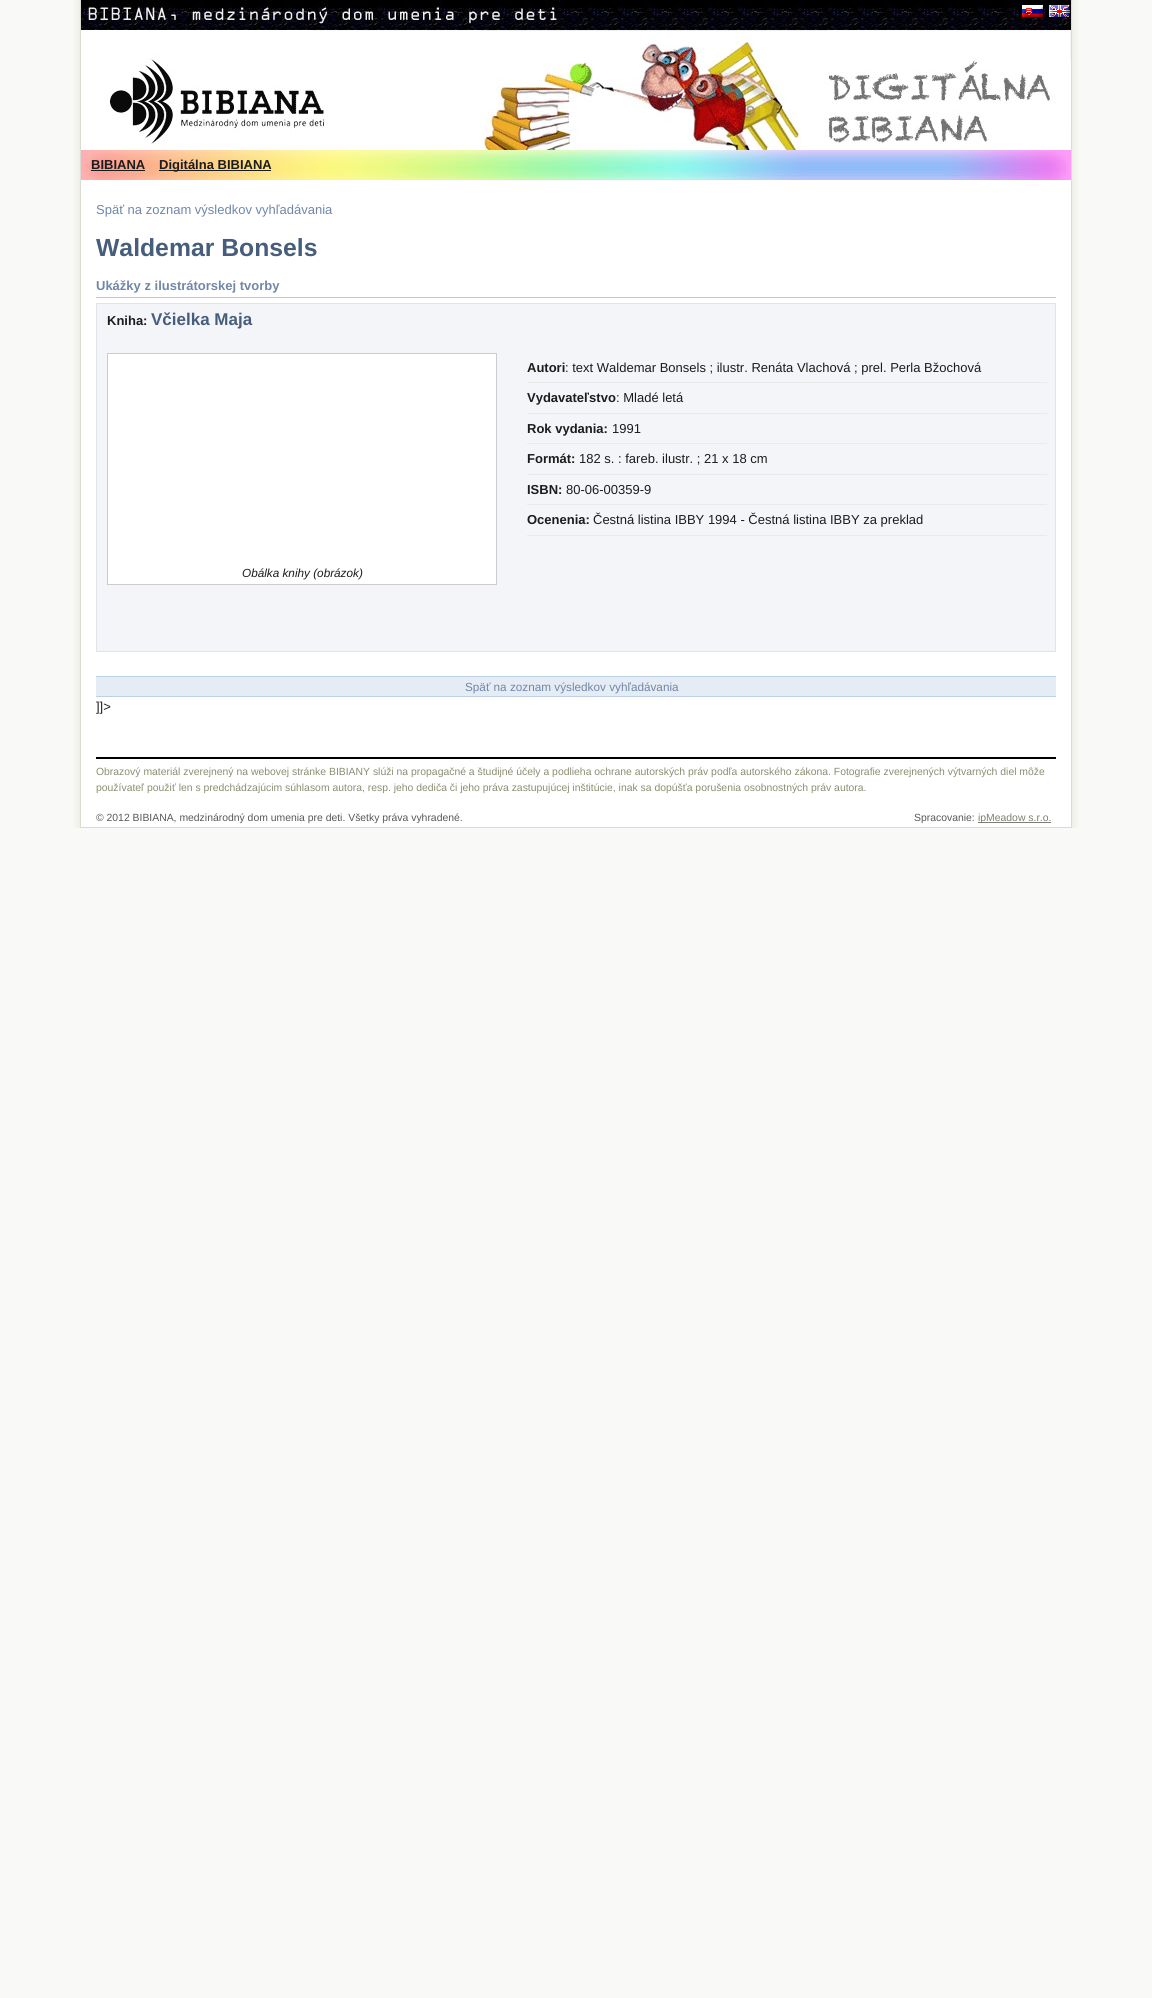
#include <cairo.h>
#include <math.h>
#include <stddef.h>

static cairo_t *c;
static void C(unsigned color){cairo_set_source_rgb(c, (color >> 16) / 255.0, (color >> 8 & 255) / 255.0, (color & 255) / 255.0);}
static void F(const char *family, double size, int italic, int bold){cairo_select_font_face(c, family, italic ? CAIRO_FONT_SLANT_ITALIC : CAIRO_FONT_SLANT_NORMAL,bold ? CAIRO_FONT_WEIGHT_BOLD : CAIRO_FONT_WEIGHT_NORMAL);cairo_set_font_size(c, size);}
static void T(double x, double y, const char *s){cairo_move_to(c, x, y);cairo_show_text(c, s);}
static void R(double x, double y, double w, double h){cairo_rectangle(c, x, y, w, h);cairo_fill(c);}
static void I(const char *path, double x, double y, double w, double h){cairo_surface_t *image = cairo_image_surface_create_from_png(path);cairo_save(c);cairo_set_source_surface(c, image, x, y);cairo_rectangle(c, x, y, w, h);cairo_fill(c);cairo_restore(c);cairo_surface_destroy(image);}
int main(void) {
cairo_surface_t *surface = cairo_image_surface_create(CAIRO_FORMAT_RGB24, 1152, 1998);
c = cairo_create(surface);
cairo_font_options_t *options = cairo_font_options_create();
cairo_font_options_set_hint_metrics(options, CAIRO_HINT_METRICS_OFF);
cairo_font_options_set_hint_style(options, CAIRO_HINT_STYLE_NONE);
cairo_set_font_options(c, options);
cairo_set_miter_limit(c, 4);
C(0xf9f9f7);
cairo_paint(c);
I("1.png",73,0,1006,828);
I("2.png",81,0,990,30);
I("3.png",1019,0,25,17);
I("4.png",1046,5,25,12);
I("5.png",81,30,990,120);
I("6.png",81,150,990,30);
F("Liberation Sans",13,0,1);
C(0x1c1c1c);
T(91,169,"BIBIANA");
R(91,170,54,1);
R(159,170,112,1);
T(159,169,"Digitálna BIBIANA");
F("Liberation Sans",13,0,0);
C(0x7087a9);
T(96,214,"Späť na zoznam výsledkov vyhľadávania");
F("Liberation Sans",24.75,0,1);
C(0x465d7c);
T(96,256,"Waldemar Bonsels");
C(0xbbc8db);
R(96,297,960,1);
F("Liberation Sans",13,0,1);
C(0x7087a9);
T(96,290,"Ukážky z ilustrátorskej tvorby");
C(0xf4f5f8);
cairo_rectangle(c,96.5,303.5,959,348);
cairo_fill_preserve(c);
C(0xe1e5eb);
cairo_set_line_width(c,1);
cairo_stroke(c);
C(0x1c1c1c);
T(107,325,"Kniha:");
F("Liberation Sans",17,0,1);
C(0x465d7c);
T(151,325,"Včielka Maja");
C(0xeaeaea);
R(527,382,520,1);
F("Liberation Sans",13,0,1);
C(0x1c1c1c);
T(527,372,"Autori");
F("Liberation Sans",13,0,0);
T(565,372,": text Waldemar Bonsels ; ilustr. Renáta Vlachová ; prel. Perla Bžochová");
C(0xeaeaea);
R(527,413,520,1);
F("Liberation Sans",13,0,1);
C(0x1c1c1c);
T(527,402,"Vydavateľstvo");
F("Liberation Sans",13,0,0);
T(616,402,": Mladé letá");
C(0xeaeaea);
R(527,443,520,1);
F("Liberation Sans",13,0,1);
C(0x1c1c1c);
T(527,433,"Rok vydania:");
F("Liberation Sans",13,0,0);
T(612,433,"1991");
C(0xeaeaea);
R(527,474,520,1);
F("Liberation Sans",13,0,1);
C(0x1c1c1c);
T(527,463,"Formát:");
F("Liberation Sans",13,0,0);
T(579,463,"182 s. : fareb. ilustr. ; 21 x 18 cm");
C(0xeaeaea);
R(527,504,520,1);
F("Liberation Sans",13,0,1);
C(0x1c1c1c);
T(527,494,"ISBN:");
F("Liberation Sans",13,0,0);
T(566,494,"80-06-00359-9");
C(0xeaeaea);
R(527,535,520,1);
F("Liberation Sans",13,0,1);
C(0x1c1c1c);
T(527,524,"Ocenenia:");
F("Liberation Sans",13,0,0);
T(593,524,"Čestná listina IBBY 1994 - Čestná listina IBBY za preklad");
C(0xffffff);
cairo_rectangle(c,107.5,353.5,389,231);
cairo_fill_preserve(c);
C(0xcccccc);
cairo_stroke(c);
F("Liberation Sans",11.75,1,0);
C(0x1c1c1c);
T(242,577,"Obálka knihy (obrázok)");
C(0xe5ecf3);
R(96,677,960,19);
C(0xbcd0e8);
R(96,676,960,1);
R(96,696,960,1);
F("Liberation Sans",11.75,0,0);
C(0x7087a9);
T(465,691,"Späť na zoznam výsledkov vyhľadávania");
F("Liberation Sans",13,0,0);
C(0x1c1c1c);
T(96,711,"]]>");
C(0x000000);
R(96,757,960,2);
F("Liberation Sans",10.4,0,0);
C(0x8c8c73);
T(96,775,"Obrazový materiál zverejnený na webovej stránke BIBIANY slúži na propagačné a študijné účely a podlieha ochrane autorských práv podľa autorského zákona. Fotografie zverejnených výtvarných diel môže");
T(96,791,"používateľ použiť len s predchádzajúcim súhlasom autora, resp. jeho dediča či jeho práva zastupujúcej inštitúcie, inak sa dopúšťa porušenia osobnostných práv autora.");
C(0x585858);
T(96,821,"© 2012 BIBIANA, medzinárodný dom umenia pre deti. Všetky práva vyhradené.");
T(914,821,"Spracovanie:");
C(0x7d7d71);
R(978,822,73,1);
T(978,821,"ipMeadow s.r.o.");
C(0xdcdcd0);
R(81,827,990,1);
cairo_surface_write_to_png(surface, "o.png");
cairo_font_options_destroy(options);
cairo_destroy(c);
cairo_surface_destroy(surface);
return 0;
}
